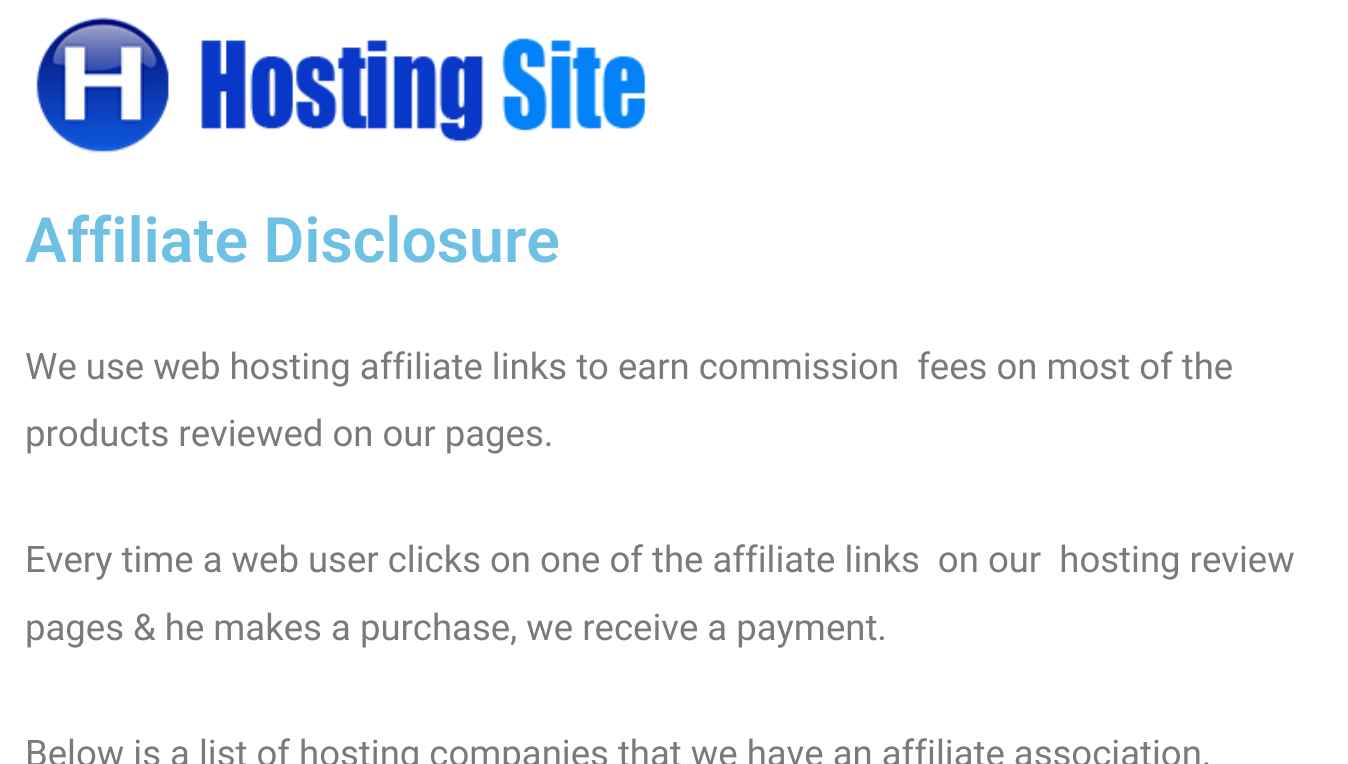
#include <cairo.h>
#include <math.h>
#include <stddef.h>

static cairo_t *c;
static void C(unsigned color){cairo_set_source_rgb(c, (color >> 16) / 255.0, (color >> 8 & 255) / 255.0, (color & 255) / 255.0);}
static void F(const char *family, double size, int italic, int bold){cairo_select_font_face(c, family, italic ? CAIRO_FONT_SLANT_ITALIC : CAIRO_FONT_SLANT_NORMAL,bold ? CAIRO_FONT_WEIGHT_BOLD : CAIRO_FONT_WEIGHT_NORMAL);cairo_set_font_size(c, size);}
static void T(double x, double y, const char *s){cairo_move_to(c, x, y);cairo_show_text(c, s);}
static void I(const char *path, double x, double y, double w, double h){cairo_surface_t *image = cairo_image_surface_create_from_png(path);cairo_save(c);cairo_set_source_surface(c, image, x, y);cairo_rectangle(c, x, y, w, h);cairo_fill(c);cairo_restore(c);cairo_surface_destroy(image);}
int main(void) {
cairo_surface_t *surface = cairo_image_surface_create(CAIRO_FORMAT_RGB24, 1348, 764);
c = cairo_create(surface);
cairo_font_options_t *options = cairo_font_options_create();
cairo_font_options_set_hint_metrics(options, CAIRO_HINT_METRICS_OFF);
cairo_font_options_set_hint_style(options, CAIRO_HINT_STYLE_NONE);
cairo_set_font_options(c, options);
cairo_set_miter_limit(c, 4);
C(0xffffff);
cairo_paint(c);
I("1.png",36,17,610,136);
F("Roboto SemiBold",62.5,0,0);
C(0x6ec1e4);
T(25,262,"Affiliate Disclosure");
F("Roboto",36.5,0,0);
C(0x7a7a7a);
T(25,379,"We use web hosting affiliate links to earn commission  fees on most of the");
T(25,446,"products reviewed on our pages.");
T(25,572,"Every time a web user clicks on one of the affiliate links  on our  hosting review");
T(25,640,"pages & he makes a purchase, we receive a payment.");
T(25,766,"Below is a list of hosting companies that we have an affiliate association.");
cairo_surface_write_to_png(surface, "o.png");
cairo_font_options_destroy(options);
cairo_destroy(c);
cairo_surface_destroy(surface);
return 0;
}
